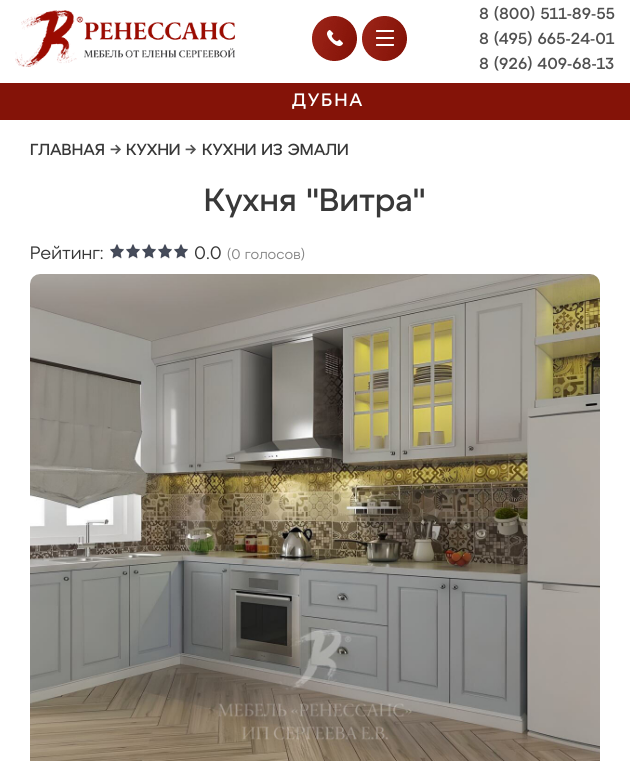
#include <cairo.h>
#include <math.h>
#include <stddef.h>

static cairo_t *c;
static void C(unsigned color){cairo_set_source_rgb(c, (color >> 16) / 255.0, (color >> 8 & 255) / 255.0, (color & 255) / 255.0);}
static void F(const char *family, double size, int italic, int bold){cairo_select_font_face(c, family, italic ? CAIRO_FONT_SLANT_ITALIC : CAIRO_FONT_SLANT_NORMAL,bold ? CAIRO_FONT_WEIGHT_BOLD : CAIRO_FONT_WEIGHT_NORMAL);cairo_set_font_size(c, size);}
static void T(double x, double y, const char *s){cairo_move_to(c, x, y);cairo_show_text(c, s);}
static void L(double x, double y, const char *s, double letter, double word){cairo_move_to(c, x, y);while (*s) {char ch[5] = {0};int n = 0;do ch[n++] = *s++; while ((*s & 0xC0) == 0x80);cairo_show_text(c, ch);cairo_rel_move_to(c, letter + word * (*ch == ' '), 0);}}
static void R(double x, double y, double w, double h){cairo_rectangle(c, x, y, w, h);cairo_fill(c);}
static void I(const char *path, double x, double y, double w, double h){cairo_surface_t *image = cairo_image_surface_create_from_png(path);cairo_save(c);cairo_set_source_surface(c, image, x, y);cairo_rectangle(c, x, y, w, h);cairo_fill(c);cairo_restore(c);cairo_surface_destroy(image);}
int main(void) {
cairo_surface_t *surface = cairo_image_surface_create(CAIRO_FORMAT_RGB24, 630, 761);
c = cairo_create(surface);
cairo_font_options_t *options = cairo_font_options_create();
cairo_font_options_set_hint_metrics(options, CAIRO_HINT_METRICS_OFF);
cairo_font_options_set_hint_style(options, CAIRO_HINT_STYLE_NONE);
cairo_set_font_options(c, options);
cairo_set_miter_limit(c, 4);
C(0xffffff);
cairo_paint(c);
I("1.png",15,10,220,57);
I("2.png",312,16,45,45);
I("3.png",362,16,45,45);
F("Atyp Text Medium",16,0,0);
C(0x505050);
T(479,19,"8 (800) 511-89-55");
T(479,44,"8 (495) 665-24-01");
T(479,69,"8 (926) 409-68-13");
C(0x841308);
R(0,83,630,37);
F("Atyp Text Medium",18,0,0);
C(0xffffff);
L(292,106,"ДУБНА",2,0);
F("Atyp Text Medium",16,0,0);
C(0x383838);
T(30,155,"ГЛАВНАЯ");
C(0x505050);
T(110,155,"→");
C(0x383838);
T(126,155,"КУХНИ");
C(0x505050);
T(185,155,"→");
C(0x383838);
T(202,155,"КУХНИ ИЗ ЭМАЛИ");
F("Atyp Text Medium",32,0,0);
T(204,211,"Кухня \"Витра\"");
F("Atyp Text",18,0,0);
T(30,259,"Рейтинг:");
I("4.png",110,244,78,15);
T(194,259,"0.0");
F("Atyp Text",14,0,0);
C(0x858585);
T(227,259,"(0 голосов)");
I("5.png",30,274,570,487);
cairo_surface_write_to_png(surface, "o.png");
cairo_font_options_destroy(options);
cairo_destroy(c);
cairo_surface_destroy(surface);
return 0;
}
